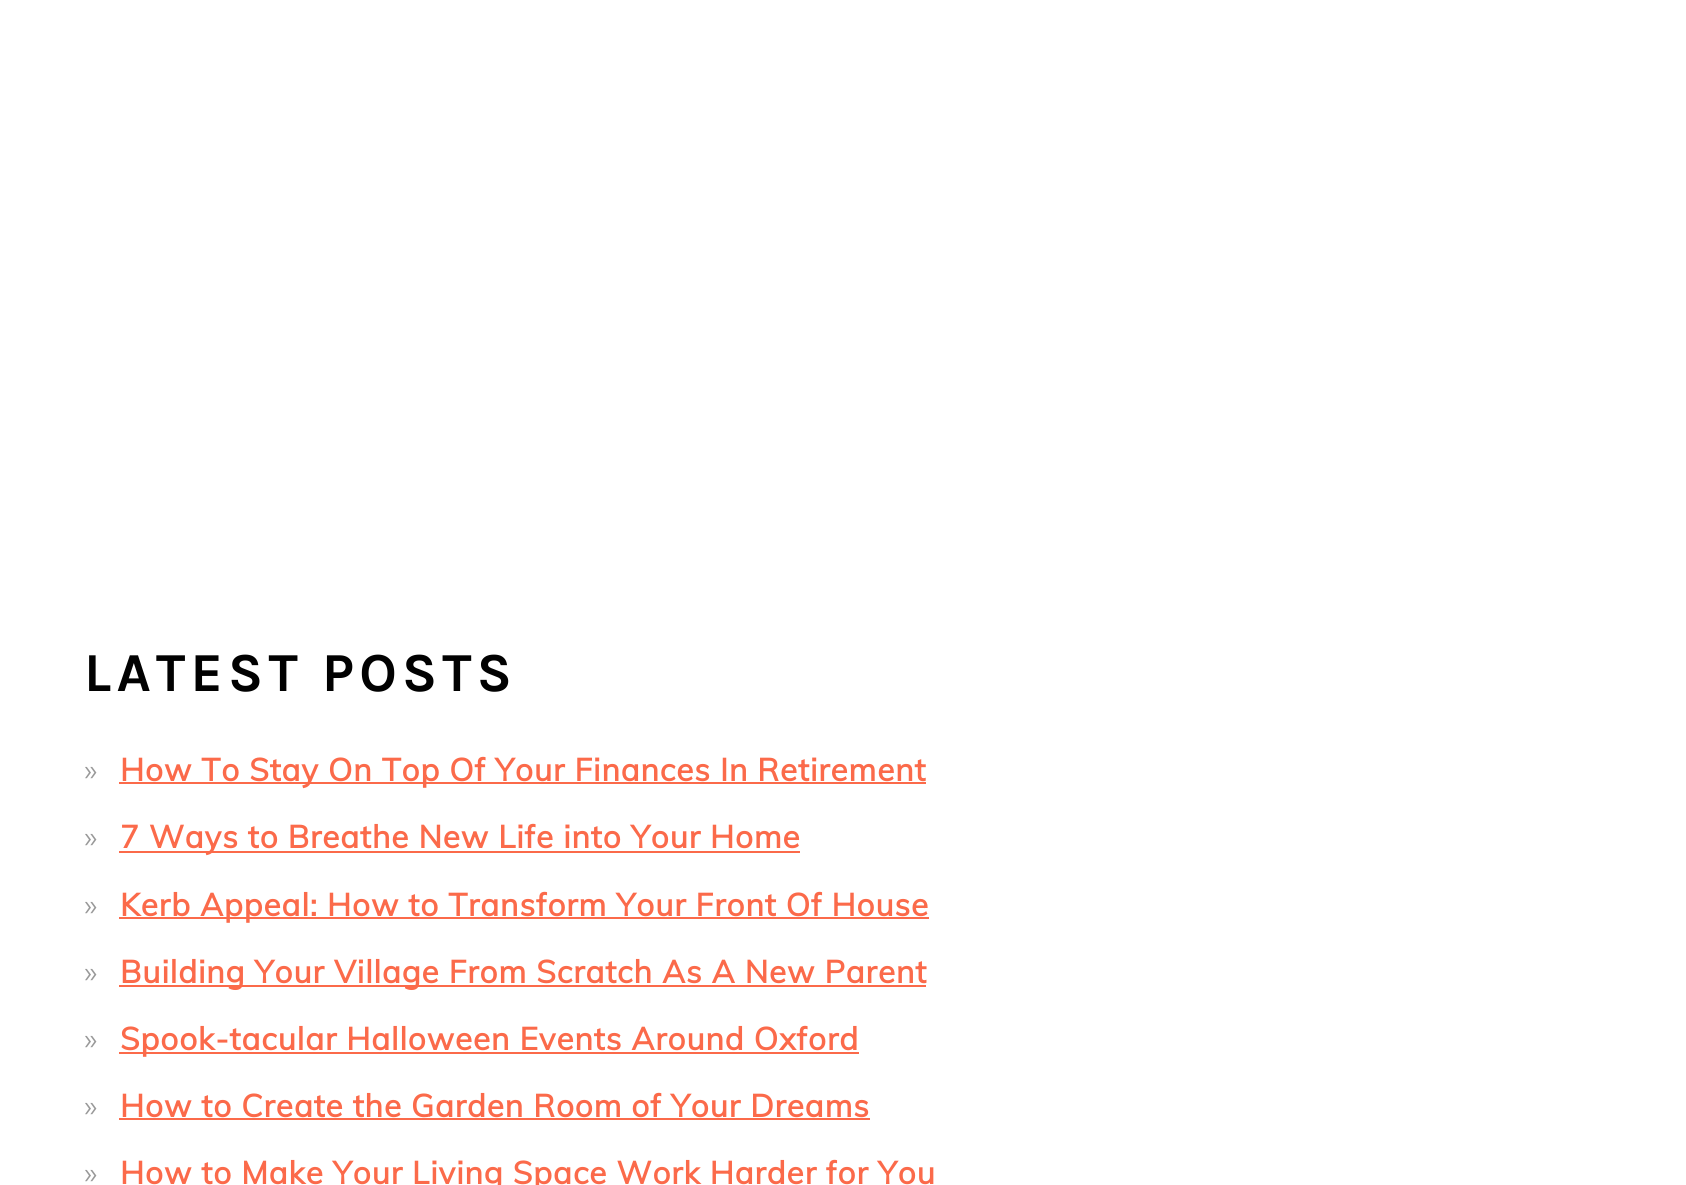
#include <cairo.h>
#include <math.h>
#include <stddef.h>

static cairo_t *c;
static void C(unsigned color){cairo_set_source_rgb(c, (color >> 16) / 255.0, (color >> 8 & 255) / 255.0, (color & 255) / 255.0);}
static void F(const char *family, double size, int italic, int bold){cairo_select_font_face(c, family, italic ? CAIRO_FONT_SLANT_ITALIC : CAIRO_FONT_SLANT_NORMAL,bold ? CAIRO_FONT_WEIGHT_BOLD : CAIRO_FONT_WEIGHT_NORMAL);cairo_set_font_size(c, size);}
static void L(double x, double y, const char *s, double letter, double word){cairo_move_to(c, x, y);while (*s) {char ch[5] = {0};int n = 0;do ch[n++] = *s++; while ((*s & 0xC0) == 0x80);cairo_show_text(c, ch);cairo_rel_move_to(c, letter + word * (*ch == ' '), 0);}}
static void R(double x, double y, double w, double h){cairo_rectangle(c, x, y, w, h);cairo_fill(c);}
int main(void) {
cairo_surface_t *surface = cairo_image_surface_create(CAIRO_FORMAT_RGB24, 1686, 1185);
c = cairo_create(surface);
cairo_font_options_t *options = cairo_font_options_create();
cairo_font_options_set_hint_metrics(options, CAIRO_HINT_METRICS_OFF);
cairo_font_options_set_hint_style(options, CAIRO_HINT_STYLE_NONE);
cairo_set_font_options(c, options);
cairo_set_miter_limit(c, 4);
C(0xffffff);
cairo_paint(c);
F("Karla",55,0,1);
C(0x010101);
L(84,691,"LATEST POSTS",5.25,0);
F("Muli Light",31.5,0,0);
C(0x999999);
L(84,781,"»",.88,0);
C(0xfb6a4a);
R(119,782,807,2);
F("Muli",31.5,0,1);
L(120,781,"How To Stay On Top Of Your Finances In Retirement",.88,0);
F("Muli Light",31.5,0,0);
C(0x999999);
L(84,848,"»",.88,0);
C(0xfb6a4a);
R(119,851,681,2);
F("Muli",31.5,0,1);
L(120,848,"7 Ways to Breathe New Life into Your Home",.88,0);
F("Muli Light",31.5,0,0);
C(0x999999);
L(84,916,"»",.88,0);
C(0xfb6a4a);
R(119,917,810,2);
F("Muli",31.5,0,1);
L(120,916,"Kerb Appeal: How to Transform Your Front Of House",.88,0);
F("Muli Light",31.5,0,0);
C(0x999999);
L(84,983,"»",.88,0);
C(0xfb6a4a);
R(119,985,807,2);
F("Muli",31.5,0,1);
L(120,983,"Building Your Village From Scratch As A New Parent",.88,0);
F("Muli Light",31.5,0,0);
C(0x999999);
L(84,1050,"»",.88,0);
C(0xfb6a4a);
R(119,1052,740,2);
F("Muli",31.5,0,1);
L(120,1050,"Spook-tacular Halloween Events Around Oxford",.88,0);
F("Muli Light",31.5,0,0);
C(0x999999);
L(84,1117,"»",.88,0);
F("Muli",31.5,0,1);
C(0xfb6a4a);
L(120,1117,"How to Create the Garden Room of Your Dreams",.88,0);
R(119,1118,751,2);
F("Muli Light",31.5,0,0);
C(0x999999);
L(84,1184,"»",.88,0);
F("Muli",31.5,0,1);
C(0xfb6a4a);
L(120,1184,"How to Make Your Living Space Work Harder for You",.88,0);
cairo_surface_write_to_png(surface, "o.png");
cairo_font_options_destroy(options);
cairo_destroy(c);
cairo_surface_destroy(surface);
return 0;
}
